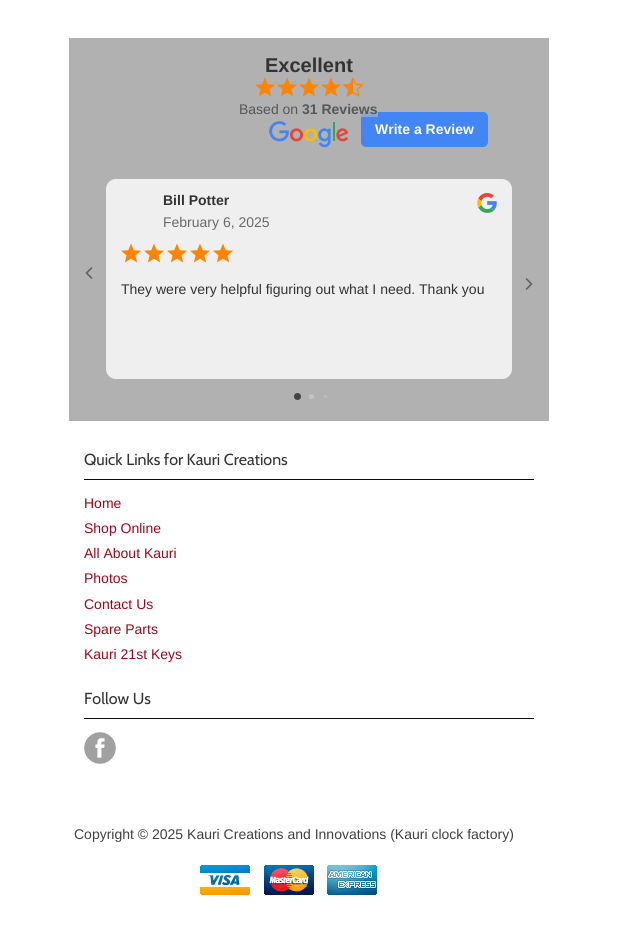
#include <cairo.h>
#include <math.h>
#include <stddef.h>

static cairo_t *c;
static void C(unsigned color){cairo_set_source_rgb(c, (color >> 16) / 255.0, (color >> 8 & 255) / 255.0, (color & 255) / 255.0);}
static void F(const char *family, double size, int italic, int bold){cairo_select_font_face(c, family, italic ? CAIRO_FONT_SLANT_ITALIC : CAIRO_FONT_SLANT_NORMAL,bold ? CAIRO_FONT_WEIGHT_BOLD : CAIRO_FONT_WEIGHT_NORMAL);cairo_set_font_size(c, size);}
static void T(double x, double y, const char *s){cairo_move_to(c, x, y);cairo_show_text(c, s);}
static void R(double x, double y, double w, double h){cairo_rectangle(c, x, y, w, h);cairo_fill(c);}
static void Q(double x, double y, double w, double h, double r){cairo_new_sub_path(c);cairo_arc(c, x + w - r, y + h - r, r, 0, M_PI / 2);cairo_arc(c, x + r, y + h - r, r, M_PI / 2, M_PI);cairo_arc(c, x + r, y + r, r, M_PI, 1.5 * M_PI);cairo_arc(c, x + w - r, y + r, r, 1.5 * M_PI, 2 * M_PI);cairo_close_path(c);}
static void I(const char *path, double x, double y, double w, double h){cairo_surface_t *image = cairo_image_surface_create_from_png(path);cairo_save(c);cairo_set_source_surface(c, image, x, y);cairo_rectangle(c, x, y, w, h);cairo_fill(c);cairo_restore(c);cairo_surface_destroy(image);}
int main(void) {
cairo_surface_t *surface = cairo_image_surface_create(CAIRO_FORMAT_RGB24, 617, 930);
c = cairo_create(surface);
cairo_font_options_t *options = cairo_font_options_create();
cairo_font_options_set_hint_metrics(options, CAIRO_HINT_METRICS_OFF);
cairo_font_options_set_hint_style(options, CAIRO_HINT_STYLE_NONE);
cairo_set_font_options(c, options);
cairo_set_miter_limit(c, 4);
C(0xffffff);
cairo_paint(c);
C(0xb1b1b1);
R(69,38,480,383);
F("Liberation Sans",20,0,1);
C(0x333333);
T(265,72,"Excellent");
I("1.png",255,77,20,20);
I("1.png",277,77,20,20);
I("1.png",299,77,20,20);
I("1.png",321,77,20,20);
I("2.png",343,77,20,20);
F("Liberation Sans",14,0,0);
C(0x575757);
T(239,114,"Based on");
C(0x4285f4);
Q(361,112,127,35,5);
cairo_fill(c);
cairo_set_source_rgba(c,0.694,0.694,0.694,0.7);
R(361,112,17,5);
F("Liberation Sans",14,0,1);
C(0x575757);
T(302,114,"31 Reviews");
I("3.png",269,121,79,27);
C(0xffffff);
T(375,134,"Write a Review");
cairo_new_path(c);
cairo_move_to(c,91.5,278);
cairo_line_to(c,86.5,273);
cairo_line_to(c,91.5,268);
C(0x646464);
cairo_set_line_width(c,1.7);
cairo_set_line_cap(c,CAIRO_LINE_CAP_ROUND);
cairo_set_line_join(c,CAIRO_LINE_JOIN_ROUND);
cairo_stroke(c);
C(0xefefef);
Q(106,179,406,200,10);
cairo_fill(c);
C(0x333333);
T(163,205,"Bill Potter");
F("Liberation Sans",14,0,0);
C(0x696969);
T(163,227,"February 6, 2025");
I("4.png",477,193,20,20);
I("5.png",121,243,20,20);
I("5.png",144,243,20,20);
I("5.png",167,243,20,20);
I("5.png",190,243,20,20);
I("5.png",213,243,20,20);
C(0x333333);
T(121,294,"They were very helpful figuring out what I need. Thank you");
cairo_new_path(c);
cairo_move_to(c,526.5,289);
cairo_line_to(c,531.5,284);
cairo_line_to(c,526.5,279);
C(0x646464);
cairo_stroke(c);
C(0x444444);
cairo_arc(c,297.5,396.5,3.5,0,2 * M_PI);
cairo_fill(c);
C(0xc4c4c4);
cairo_arc(c,311.5,396.5,2.5,0,2 * M_PI);
cairo_fill(c);
C(0xbcbcbc);
cairo_arc(c,325.5,396.5,1.5,0,2 * M_PI);
cairo_fill(c);
C(0x0a0a0a);
R(84,479,450,1);
F("Cabin",16,0,0);
C(0x333333);
T(84,465,"Quick Links for Kauri Creations");
F("Liberation Sans",14,0,0);
C(0x9c071b);
T(84,508,"Home");
T(84,533,"Shop Online");
T(84,558,"All About Kauri");
T(84,583,"Photos");
T(84,609,"Contact Us");
T(84,634,"Spare Parts");
T(84,659,"Kauri 21st Keys");
C(0x0a0a0a);
R(84,718,450,1);
F("Cabin",16,0,0);
C(0x333333);
T(84,704,"Follow Us");
I("6.png",84,732,32,32);
F("Liberation Sans",14,0,0);
C(0x404040);
T(74,839,"Copyright © 2025 Kauri Creations and Innovations (Kauri clock factory)");
I("7.png",200,865,50,30);
I("8.png",264,865,50,30);
I("9.png",327,865,50,30);
cairo_surface_write_to_png(surface, "o.png");
cairo_font_options_destroy(options);
cairo_destroy(c);
cairo_surface_destroy(surface);
return 0;
}
